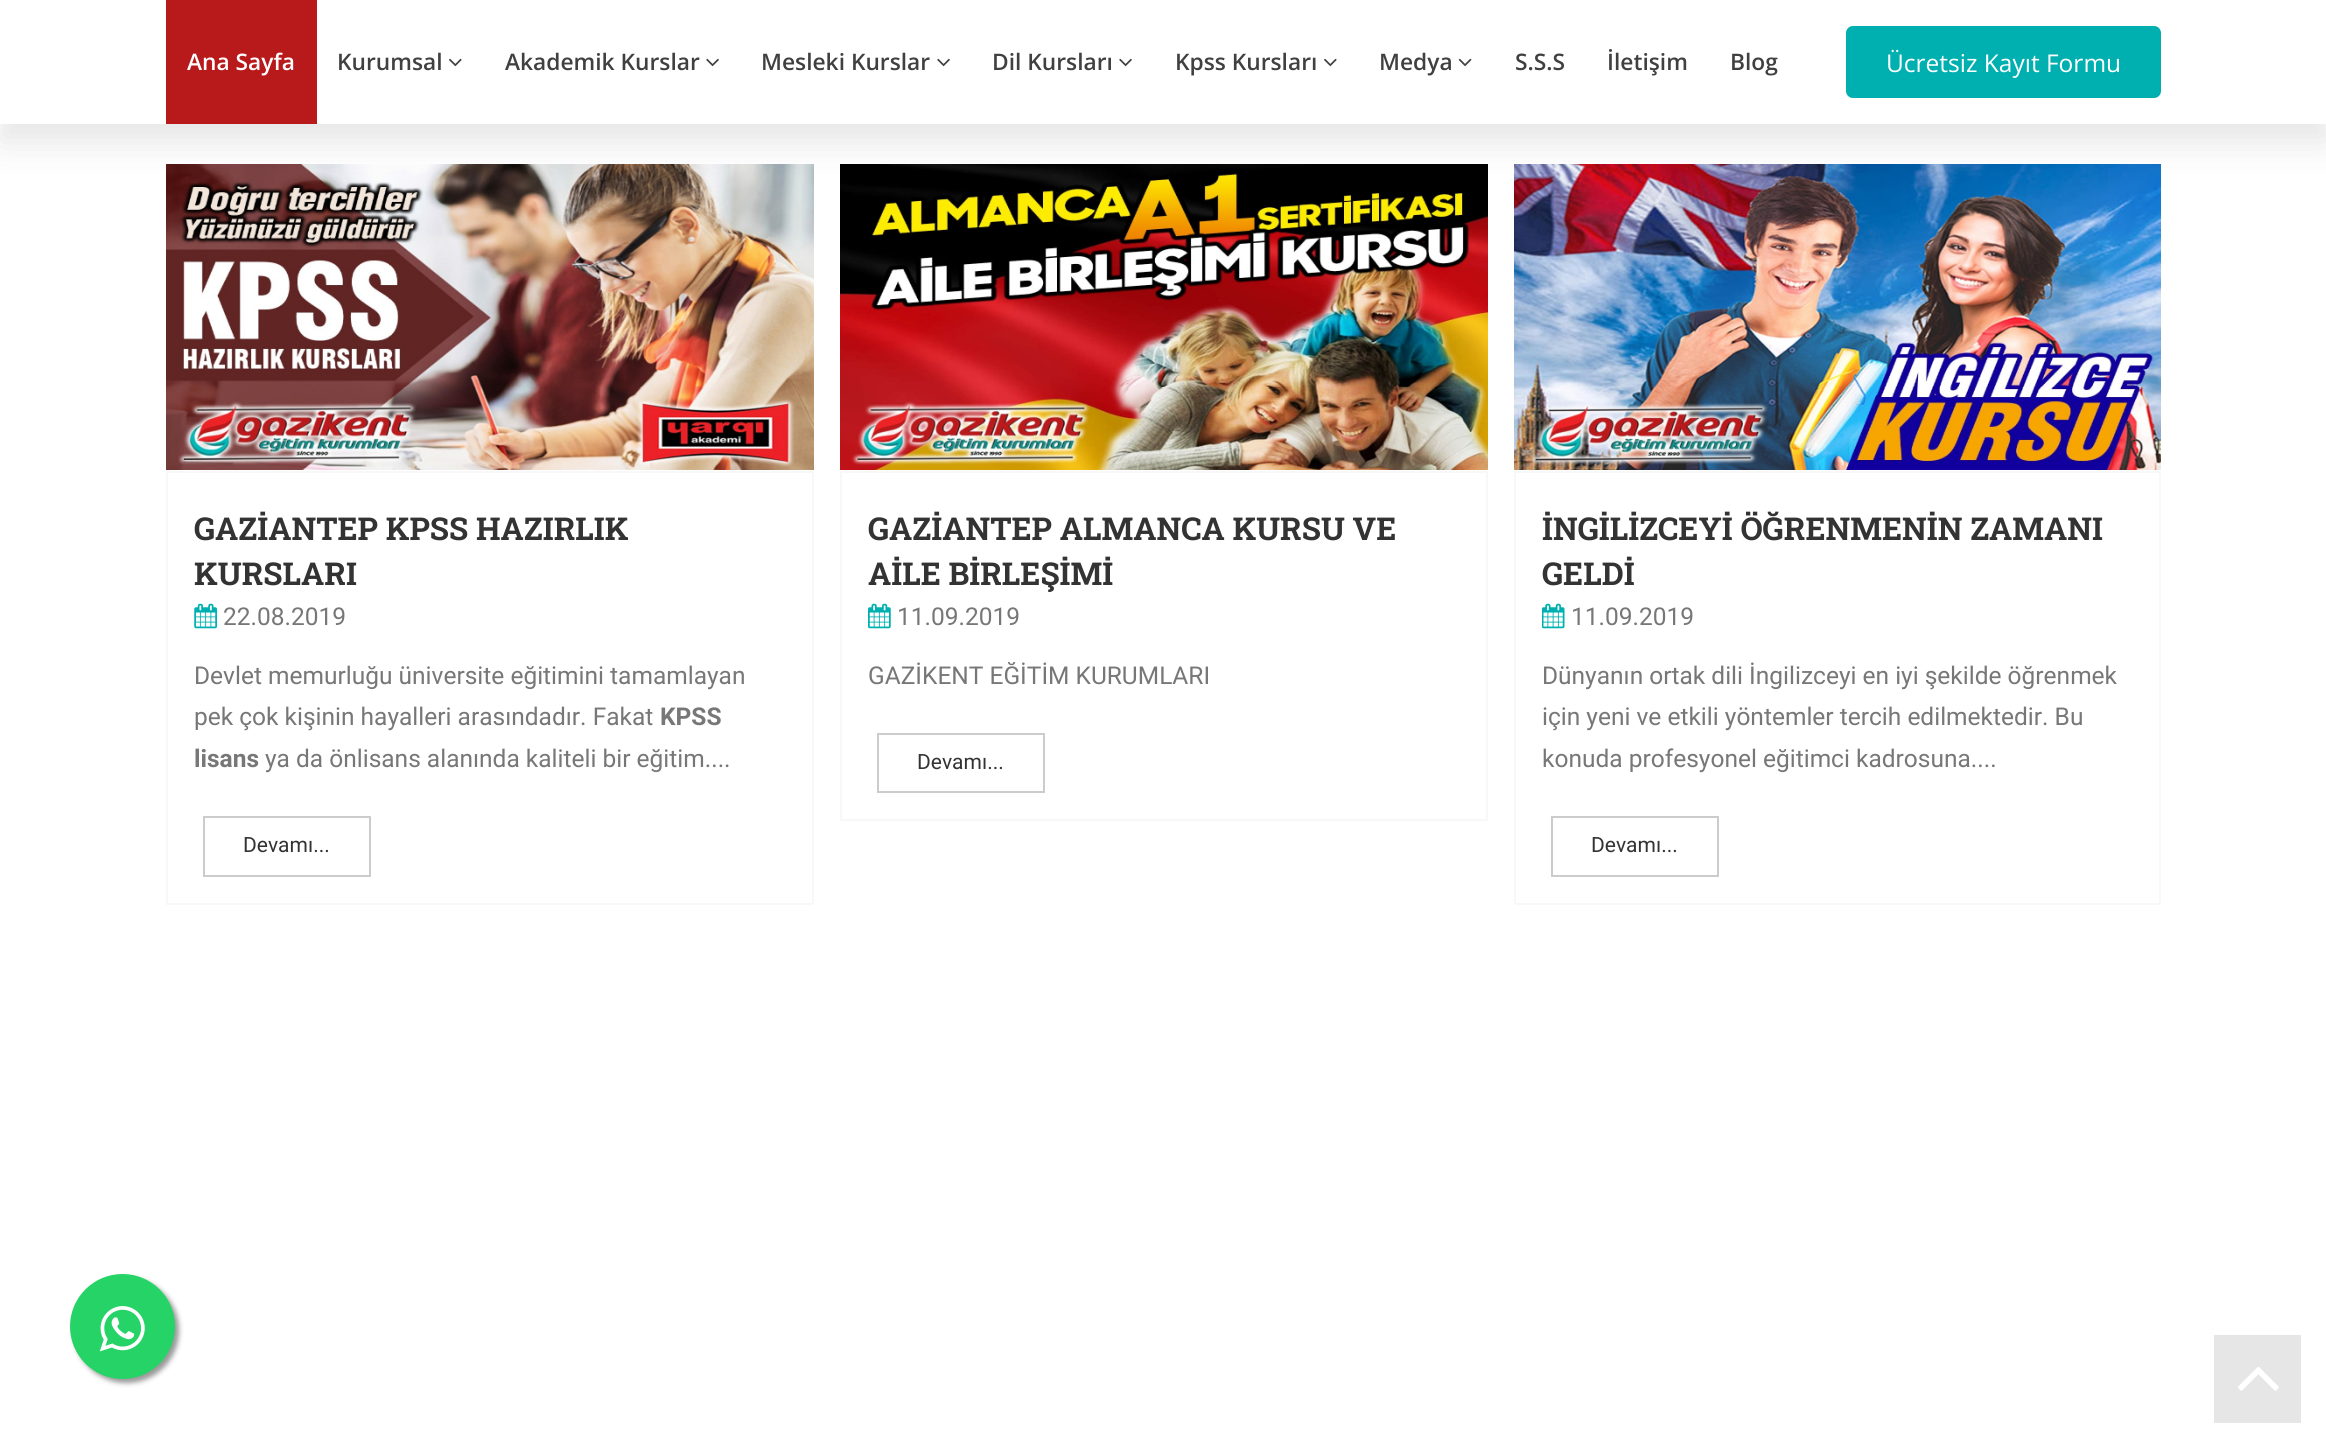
#include <cairo.h>
#include <math.h>
#include <stddef.h>

static cairo_t *c;
static void C(unsigned color){cairo_set_source_rgb(c, (color >> 16) / 255.0, (color >> 8 & 255) / 255.0, (color & 255) / 255.0);}
static void F(const char *family, double size, int italic, int bold){cairo_select_font_face(c, family, italic ? CAIRO_FONT_SLANT_ITALIC : CAIRO_FONT_SLANT_NORMAL,bold ? CAIRO_FONT_WEIGHT_BOLD : CAIRO_FONT_WEIGHT_NORMAL);cairo_set_font_size(c, size);}
static void T(double x, double y, const char *s){cairo_move_to(c, x, y);cairo_show_text(c, s);}
static void R(double x, double y, double w, double h){cairo_rectangle(c, x, y, w, h);cairo_fill(c);}
static void Q(double x, double y, double w, double h, double r){cairo_new_sub_path(c);cairo_arc(c, x + w - r, y + h - r, r, 0, M_PI / 2);cairo_arc(c, x + r, y + h - r, r, M_PI / 2, M_PI);cairo_arc(c, x + r, y + r, r, M_PI, 1.5 * M_PI);cairo_arc(c, x + w - r, y + r, r, 1.5 * M_PI, 2 * M_PI);cairo_close_path(c);}
static void S(double x, double y, double w, double h, double r, double blur, double alpha){cairo_push_group_with_content(c, CAIRO_CONTENT_ALPHA);cairo_set_operator(c, CAIRO_OPERATOR_SOURCE);for (int i = 15; i >= -15 && fmin(w, h) + blur * i / 3 > 0; i -= 2) {double e = blur * i / 6;cairo_set_source_rgba(c, 0, 0, 0, alpha * erfc((i - 1) / 8.5) / 2);Q(x - e, y - e, w + 2 * e, h + 2 * e, fmax(0, fmin(r + e + blur * .6, fmin(w, h) / 2 + e)));cairo_fill(c);}cairo_pattern_t *soft = cairo_pop_group(c);cairo_mask(c, soft);cairo_pattern_destroy(soft);}
static void I(const char *path, double x, double y, double w, double h){cairo_surface_t *image = cairo_image_surface_create_from_png(path);cairo_save(c);cairo_set_source_surface(c, image, x, y);cairo_rectangle(c, x, y, w, h);cairo_fill(c);cairo_restore(c);cairo_surface_destroy(image);}
int main(void) {
cairo_surface_t *surface = cairo_image_surface_create(CAIRO_FORMAT_RGB24, 2326, 1449);
c = cairo_create(surface);
cairo_font_options_t *options = cairo_font_options_create();
cairo_font_options_set_hint_metrics(options, CAIRO_HINT_METRICS_OFF);
cairo_font_options_set_hint_style(options, CAIRO_HINT_STYLE_NONE);
cairo_set_font_options(c, options);
cairo_set_miter_limit(c, 4);
C(0xffffff);
cairo_paint(c);
I("5.png",166,164,648,306);
I("7.png",840,164,648,306);
I("9.png",1514,164,647,306);
C(0x000000);
S(0,18,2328,124,0,17.5,.1);
C(0xffffff);
R(0,0,2326,124);
C(0xb81a1c);
R(166,0,151,124);
F("Open Sans SemiBold",22.75,0,0);
C(0xffffff);
T(187,70,"Ana Sayfa");
C(0x404040);
T(337,70,"Kurumsal");
I("1.png",449,58,13,9);
T(505,70,"Akademik Kurslar");
I("2.png",706,58,13,9);
T(761,70,"Mesleki Kurslar");
I("2.png",937,58,13,9);
T(992,70,"Dil Kursları");
I("2.png",1119,58,13,9);
T(1175,70,"Kpss Kursları");
I("1.png",1324,58,13,9);
T(1379,70,"Medya");
I("3.png",1458,58,14,9);
T(1515,70,"S.S.S");
T(1607,70,"İletişim");
T(1730,70,"Blog");
C(0x00afaf);
Q(1847,27,313,70,6);
cairo_fill_preserve(c);
cairo_stroke(c);
F("Open Sans",24.5,0,0);
C(0xffffff);
T(1886,72,"Ücretsiz Kayıt Formu");
C(0x999999);
S(74,1278,105,105,52.5,2.5,1);
C(0x25d366);
cairo_arc(c,122.5,1326.5,52.5,0,2 * M_PI);
cairo_fill(c);
I("4.png",99,1306,46,46);
cairo_rectangle(c,167,472,646,432);
C(0xf7f8f7);
cairo_stroke(c);
F("Roboto Slab",31.5,0,1);
C(0x333333);
T(194,540,"GAZİANTEP KPSS HAZIRLIK");
T(194,585,"KURSLARI");
I("6.png",194,603,23,26);
F("Roboto",24.5,0,0);
C(0x777777);
T(223,625,"22.08.2019");
T(194,684,"Devlet memurluğu üniversite eğitimini tamamlayan");
T(194,725,"pek çok kişinin hayalleri arasındadır. Fakat");
F("Roboto",24.5,0,1);
T(660,725,"KPSS");
T(194,767,"lisans");
F("Roboto",24.5,0,0);
T(265,767,"ya da önlisans alanında kaliteli bir eğitim....");
cairo_rectangle(c,204,817,166,59);
C(0xcccccc);
cairo_stroke(c);
F("Roboto",21,0,0);
C(0x333333);
T(243,852,"Devamı...");
cairo_rectangle(c,841,472,646,348);
C(0xf7f8f7);
cairo_stroke(c);
F("Roboto Slab",31.5,0,1);
C(0x333333);
T(868,540,"GAZİANTEP ALMANCA KURSU VE");
T(868,585,"AİLE BİRLEŞİMİ");
I("8.png",868,603,23,26);
F("Roboto",24.5,0,0);
C(0x777777);
T(897,625,"11.09.2019");
T(868,684,"GAZİKENT EĞİTİM KURUMLARI");
cairo_rectangle(c,878,734,166,58);
C(0xcccccc);
cairo_stroke(c);
F("Roboto",21,0,0);
C(0x333333);
T(917,769,"Devamı...");
cairo_rectangle(c,1515,472,645,432);
C(0xf7f8f7);
cairo_stroke(c);
F("Roboto Slab",31.5,0,1);
C(0x333333);
T(1542,540,"İNGİLİZCEYİ ÖĞRENMENİN ZAMANI");
T(1542,585,"GELDİ");
I("10.png",1542,603,23,26);
F("Roboto",24.5,0,0);
C(0x777777);
T(1571,625,"11.09.2019");
T(1542,684,"Dünyanın ortak dili İngilizceyi en iyi şekilde öğrenmek");
T(1542,725,"için yeni ve etkili yöntemler tercih edilmektedir. Bu");
T(1542,767,"konuda profesyonel eğitimci kadrosuna....");
cairo_rectangle(c,1552,817,166,59);
C(0xcccccc);
cairo_stroke(c);
F("Roboto",21,0,0);
C(0x333333);
T(1591,852,"Devamı...");
C(0xe6e6e6);
R(2214,1335,87,88);
I("11.png",2238,1367,41,24);
cairo_surface_write_to_png(surface, "o.png");
cairo_font_options_destroy(options);
cairo_destroy(c);
cairo_surface_destroy(surface);
return 0;
}
